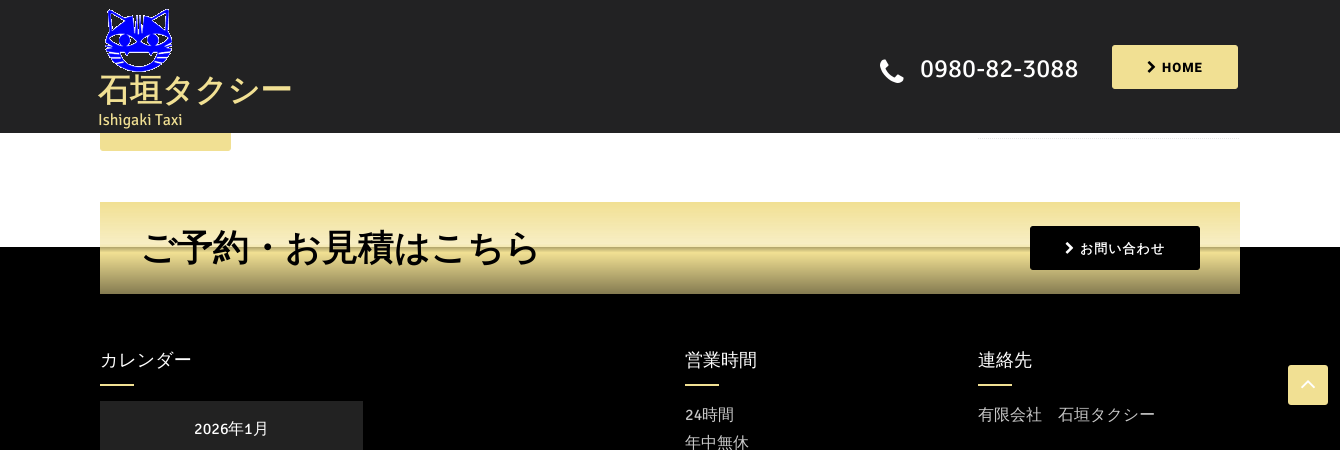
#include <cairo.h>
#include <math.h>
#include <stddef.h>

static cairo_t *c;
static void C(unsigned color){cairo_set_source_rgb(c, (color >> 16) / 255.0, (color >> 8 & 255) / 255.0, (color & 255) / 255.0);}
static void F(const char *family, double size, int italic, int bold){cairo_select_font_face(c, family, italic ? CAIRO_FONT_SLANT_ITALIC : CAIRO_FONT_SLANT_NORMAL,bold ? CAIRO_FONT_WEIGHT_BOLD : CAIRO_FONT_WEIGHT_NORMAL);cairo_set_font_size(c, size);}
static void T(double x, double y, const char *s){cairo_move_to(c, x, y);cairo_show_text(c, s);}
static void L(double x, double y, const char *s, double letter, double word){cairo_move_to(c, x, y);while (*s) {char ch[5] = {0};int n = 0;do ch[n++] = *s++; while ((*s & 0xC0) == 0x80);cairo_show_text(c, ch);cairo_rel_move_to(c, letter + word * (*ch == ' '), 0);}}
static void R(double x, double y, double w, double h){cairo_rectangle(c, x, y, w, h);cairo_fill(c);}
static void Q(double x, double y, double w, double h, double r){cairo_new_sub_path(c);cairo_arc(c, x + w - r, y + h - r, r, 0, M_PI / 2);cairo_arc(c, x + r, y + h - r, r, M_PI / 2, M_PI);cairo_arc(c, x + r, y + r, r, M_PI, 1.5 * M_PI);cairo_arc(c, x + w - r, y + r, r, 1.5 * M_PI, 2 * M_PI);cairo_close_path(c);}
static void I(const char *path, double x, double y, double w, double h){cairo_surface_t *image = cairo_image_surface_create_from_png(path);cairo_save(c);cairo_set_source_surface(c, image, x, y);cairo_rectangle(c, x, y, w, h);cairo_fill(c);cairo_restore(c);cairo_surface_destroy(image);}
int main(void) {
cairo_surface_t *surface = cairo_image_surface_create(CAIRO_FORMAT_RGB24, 1340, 450);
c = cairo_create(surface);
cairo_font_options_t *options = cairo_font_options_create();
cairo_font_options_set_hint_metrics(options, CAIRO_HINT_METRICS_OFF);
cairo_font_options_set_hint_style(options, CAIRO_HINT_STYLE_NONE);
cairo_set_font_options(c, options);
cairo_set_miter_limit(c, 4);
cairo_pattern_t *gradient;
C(0xffffff);
cairo_paint(c);
C(0xf1e093);
Q(100.5,109.5,130,41,2.5);
cairo_fill_preserve(c);
cairo_set_line_width(c,1);
cairo_stroke(c);
C(0x222223);
R(0,0,1340,133);
I("1.png",880,59,24,24);
F("Signika Negative",26,0,0);
C(0xffffff);
T(920,77,"0980-82-3088");
C(0xf1e093);
Q(1112.5,45.5,125,43,2.5);
cairo_fill_preserve(c);
cairo_stroke(c);
I("2.png",1147,61,9,12);
F("Heebo ExtraBold",13,0,0);
C(0x000000);
L(1162,72,"HOME",1,0);
I("3.png",105,9,67,63);
F("WenQuanYi Zen Hei",32,0,1);
C(0xf1e093);
T(98,101,"石垣タクシー");
F("Signika Negative",16,0,0);
T(98,125,"Ishigaki Taxi");
cairo_new_path(c);
cairo_move_to(c,978,138.5);
cairo_line_to(c,1240,138.5);
C(0xe6e6e6);
cairo_set_dash(c,(double[]){1,1},2,0);
cairo_stroke(c);
C(0x000000);
R(0,247,1340,203);
gradient = cairo_pattern_create_linear(670,202,670,294);
cairo_pattern_add_color_stop_rgba(gradient,0,0.945,0.878,0.576,1);
cairo_pattern_add_color_stop_rgba(gradient,.45,0.945,0.878,0.576,.55);
cairo_pattern_add_color_stop_rgba(gradient,.55,0.945,0.878,0.576,1);
cairo_pattern_add_color_stop_rgba(gradient,1,0.945,0.878,0.576,.55);
cairo_set_source(c,gradient);
cairo_pattern_destroy(gradient);
R(100,202,1140,92);
F("WenQuanYi Zen Hei",36,0,1);
C(0x000000);
T(140,260,"ご予約・お見積はこちら");
Q(1030.5,226.5,169,43,2.5);
cairo_fill_preserve(c);
cairo_set_dash(c,NULL,0,0);
cairo_stroke(c);
I("4.png",1065,242,9,12);
F("WenQuanYi Zen Hei",13,0,1);
C(0xffffff);
L(1080,253,"お問い合わせ",1,0);
F("WenQuanYi Zen Hei Medium",18,0,0);
T(100,366,"カレンダー");
C(0xf1e093);
R(100,384,34,2);
C(0x222222);
R(100,401,263,49);
F("Signika Negative",16,0,0);
C(0xffffff);
T(194,434,"2026");
F("WenQuanYi Zen Hei Medium",16,0,0);
T(228,434,"年");
F("Signika Negative",16,0,0);
T(244,434,"1");
F("WenQuanYi Zen Hei Medium",16,0,0);
T(253,434,"月");
F("WenQuanYi Zen Hei Medium",18,0,0);
T(685,366,"営業時間");
C(0xf1e093);
R(685,384,34,2);
F("Signika Negative",16,0,0);
C(0xc8c8c8);
T(685,420,"24");
F("WenQuanYi Zen Hei Medium",16,0,0);
T(702,420,"時間");
T(685,448,"年中無休");
F("WenQuanYi Zen Hei Medium",18,0,0);
C(0xffffff);
T(978,366,"連絡先");
C(0xf1e093);
R(978,384,34,2);
F("WenQuanYi Zen Hei Medium",16,0,0);
C(0xc8c8c8);
T(978,420,"有限会社　石垣タクシー");
C(0xf1e093);
Q(1288,365,40,40,3);
cairo_fill(c);
I("5.png",1301,380,14,9);
cairo_surface_write_to_png(surface, "o.png");
cairo_font_options_destroy(options);
cairo_destroy(c);
cairo_surface_destroy(surface);
return 0;
}
